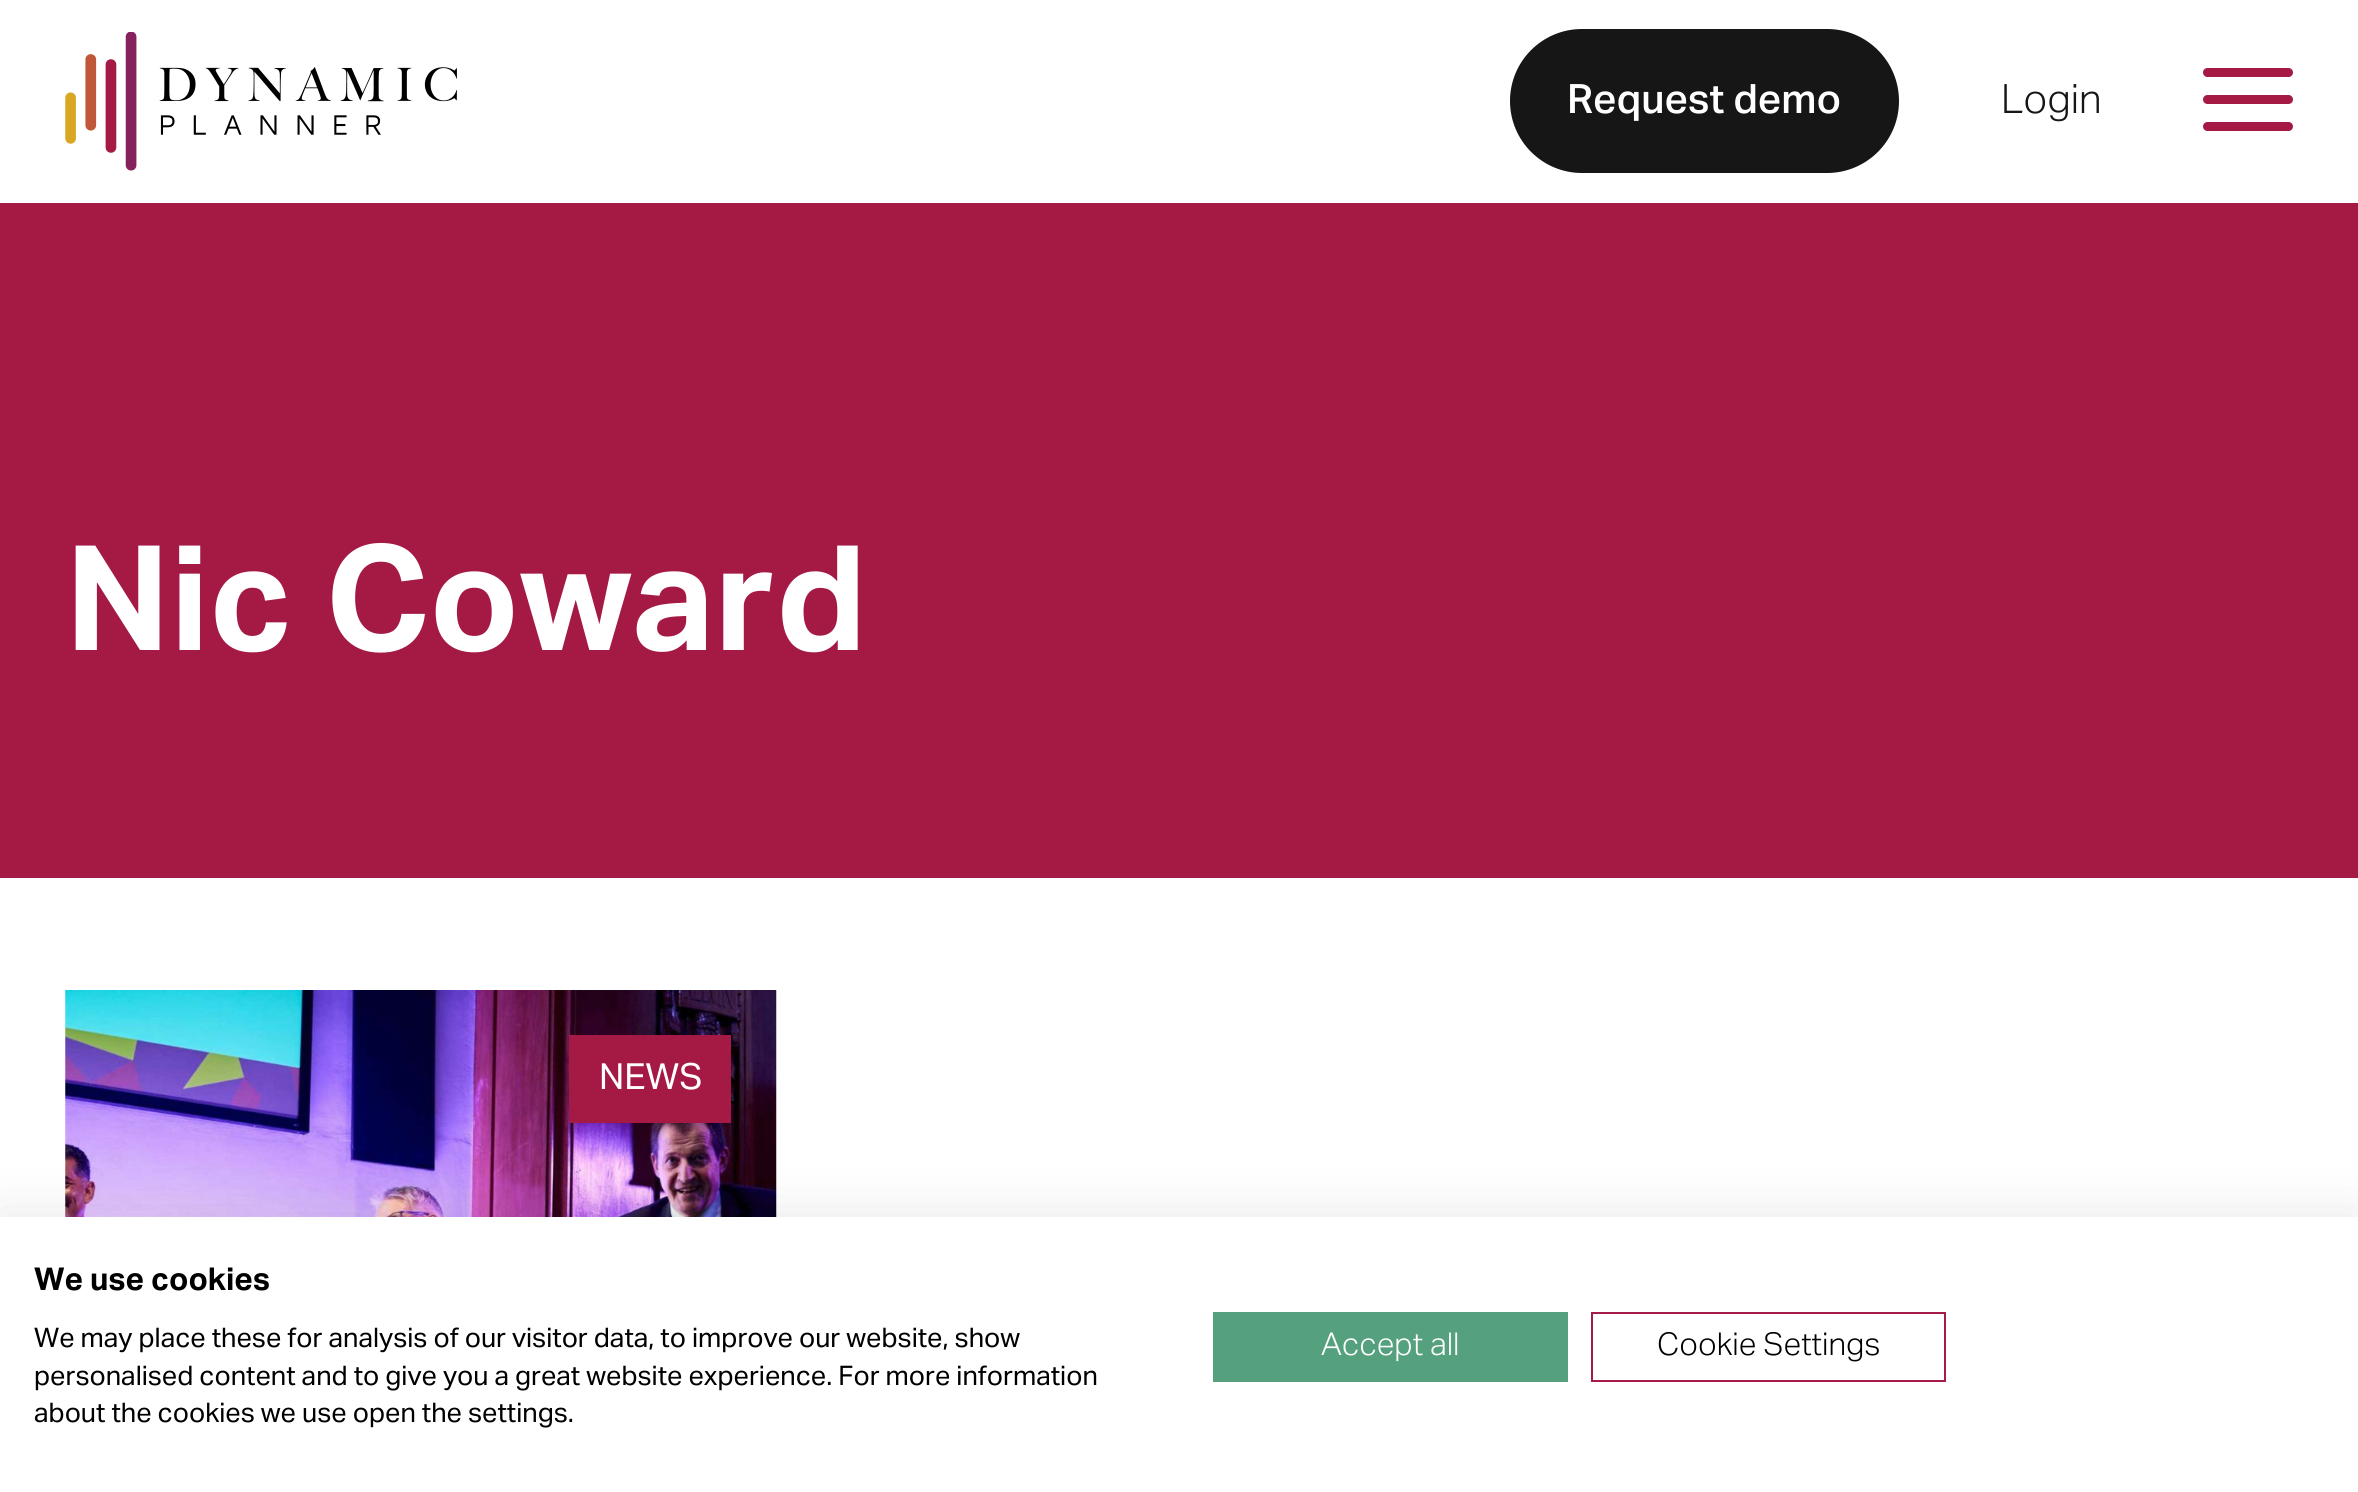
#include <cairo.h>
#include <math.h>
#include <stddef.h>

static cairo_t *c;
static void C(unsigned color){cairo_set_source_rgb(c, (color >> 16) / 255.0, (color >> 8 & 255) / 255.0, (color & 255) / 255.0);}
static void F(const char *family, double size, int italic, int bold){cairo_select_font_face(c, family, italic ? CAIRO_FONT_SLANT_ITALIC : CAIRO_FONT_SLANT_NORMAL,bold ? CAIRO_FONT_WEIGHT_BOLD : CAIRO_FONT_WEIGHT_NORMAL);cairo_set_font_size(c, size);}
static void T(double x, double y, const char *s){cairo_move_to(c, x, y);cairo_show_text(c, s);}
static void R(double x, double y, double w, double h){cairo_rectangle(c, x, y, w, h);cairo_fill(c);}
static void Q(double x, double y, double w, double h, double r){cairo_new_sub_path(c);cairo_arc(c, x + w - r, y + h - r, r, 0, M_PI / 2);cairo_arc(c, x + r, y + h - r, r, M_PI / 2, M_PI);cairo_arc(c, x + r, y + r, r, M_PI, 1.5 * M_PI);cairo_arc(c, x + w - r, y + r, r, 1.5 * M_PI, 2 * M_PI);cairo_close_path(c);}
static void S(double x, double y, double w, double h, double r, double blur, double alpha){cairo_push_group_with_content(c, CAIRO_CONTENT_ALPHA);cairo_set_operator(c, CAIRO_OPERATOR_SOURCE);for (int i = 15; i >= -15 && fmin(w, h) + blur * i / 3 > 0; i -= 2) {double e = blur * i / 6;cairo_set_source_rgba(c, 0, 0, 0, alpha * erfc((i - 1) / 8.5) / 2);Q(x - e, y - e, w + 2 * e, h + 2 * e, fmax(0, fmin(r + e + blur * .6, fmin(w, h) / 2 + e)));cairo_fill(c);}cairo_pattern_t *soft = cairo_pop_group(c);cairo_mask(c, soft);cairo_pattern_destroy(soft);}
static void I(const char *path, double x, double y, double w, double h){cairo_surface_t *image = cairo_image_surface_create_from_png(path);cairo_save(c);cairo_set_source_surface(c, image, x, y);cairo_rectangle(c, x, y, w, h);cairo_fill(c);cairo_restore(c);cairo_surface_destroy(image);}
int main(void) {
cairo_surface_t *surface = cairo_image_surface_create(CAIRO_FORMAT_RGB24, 2358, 1492);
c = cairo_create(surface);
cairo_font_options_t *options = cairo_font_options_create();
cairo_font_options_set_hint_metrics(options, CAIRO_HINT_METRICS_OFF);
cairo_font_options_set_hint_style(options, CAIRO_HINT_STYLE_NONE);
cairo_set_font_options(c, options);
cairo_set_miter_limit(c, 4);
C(0xffffff);
cairo_paint(c);
I("1.png",65,32,392,139);
C(0x161616);
Q(1512.5,31.5,384,139,69.5);
cairo_fill_preserve(c);
cairo_set_line_width(c,5);
cairo_stroke(c);
F("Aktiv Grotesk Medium",40.5,0,0);
C(0xffffff);
T(1567,113,"Request demo");
F("Aktiv Grotesk Light",40.5,0,0);
C(0x161616);
T(2001,113,"Login");
C(0xa51a45);
Q(2203,68,90,9,4.5);
cairo_fill(c);
Q(2203,95,90,9,4.5);
cairo_fill(c);
Q(2203,122,90,9,4.5);
cairo_fill(c);
R(0,203,2358,675);
F("Aktiv Grotesk",146.25,0,1);
C(0xffffff);
T(65,650,"Nic Coward");
I("2.png",65,990,712,227);
C(0xa51a45);
R(569,1035,162,88);
F("Aktiv Grotesk",36,0,0);
C(0xffffff);
T(599,1089,"NEWS");
C(0x000000);
S(0,1217,2358,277,0,27,.1);
C(0xffffff);
R(0,1217,2358,275);
F("Aktiv Grotesk",31.5,0,1);
C(0x000000);
T(34,1290,"We use cookies");
F("Aktiv Grotesk",27,0,0);
T(34,1347,"We may place these for analysis of our visitor data, to improve our website, show");
T(34,1385,"personalised content and to give you a great website experience. For more information");
T(34,1422,"about the cookies we use open the settings.");
C(0x56a17d);
R(1213,1312,355,70);
F("Aktiv Grotesk Light",31.5,0,0);
C(0xffffff);
T(1321,1355,"Accept all");
cairo_rectangle(c,1592,1313,353,68);
C(0xa51a46);
cairo_set_line_width(c,2);
cairo_stroke(c);
C(0x000000);
T(1657,1355,"Cookie Settings");
cairo_surface_write_to_png(surface, "o.png");
cairo_font_options_destroy(options);
cairo_destroy(c);
cairo_surface_destroy(surface);
return 0;
}
